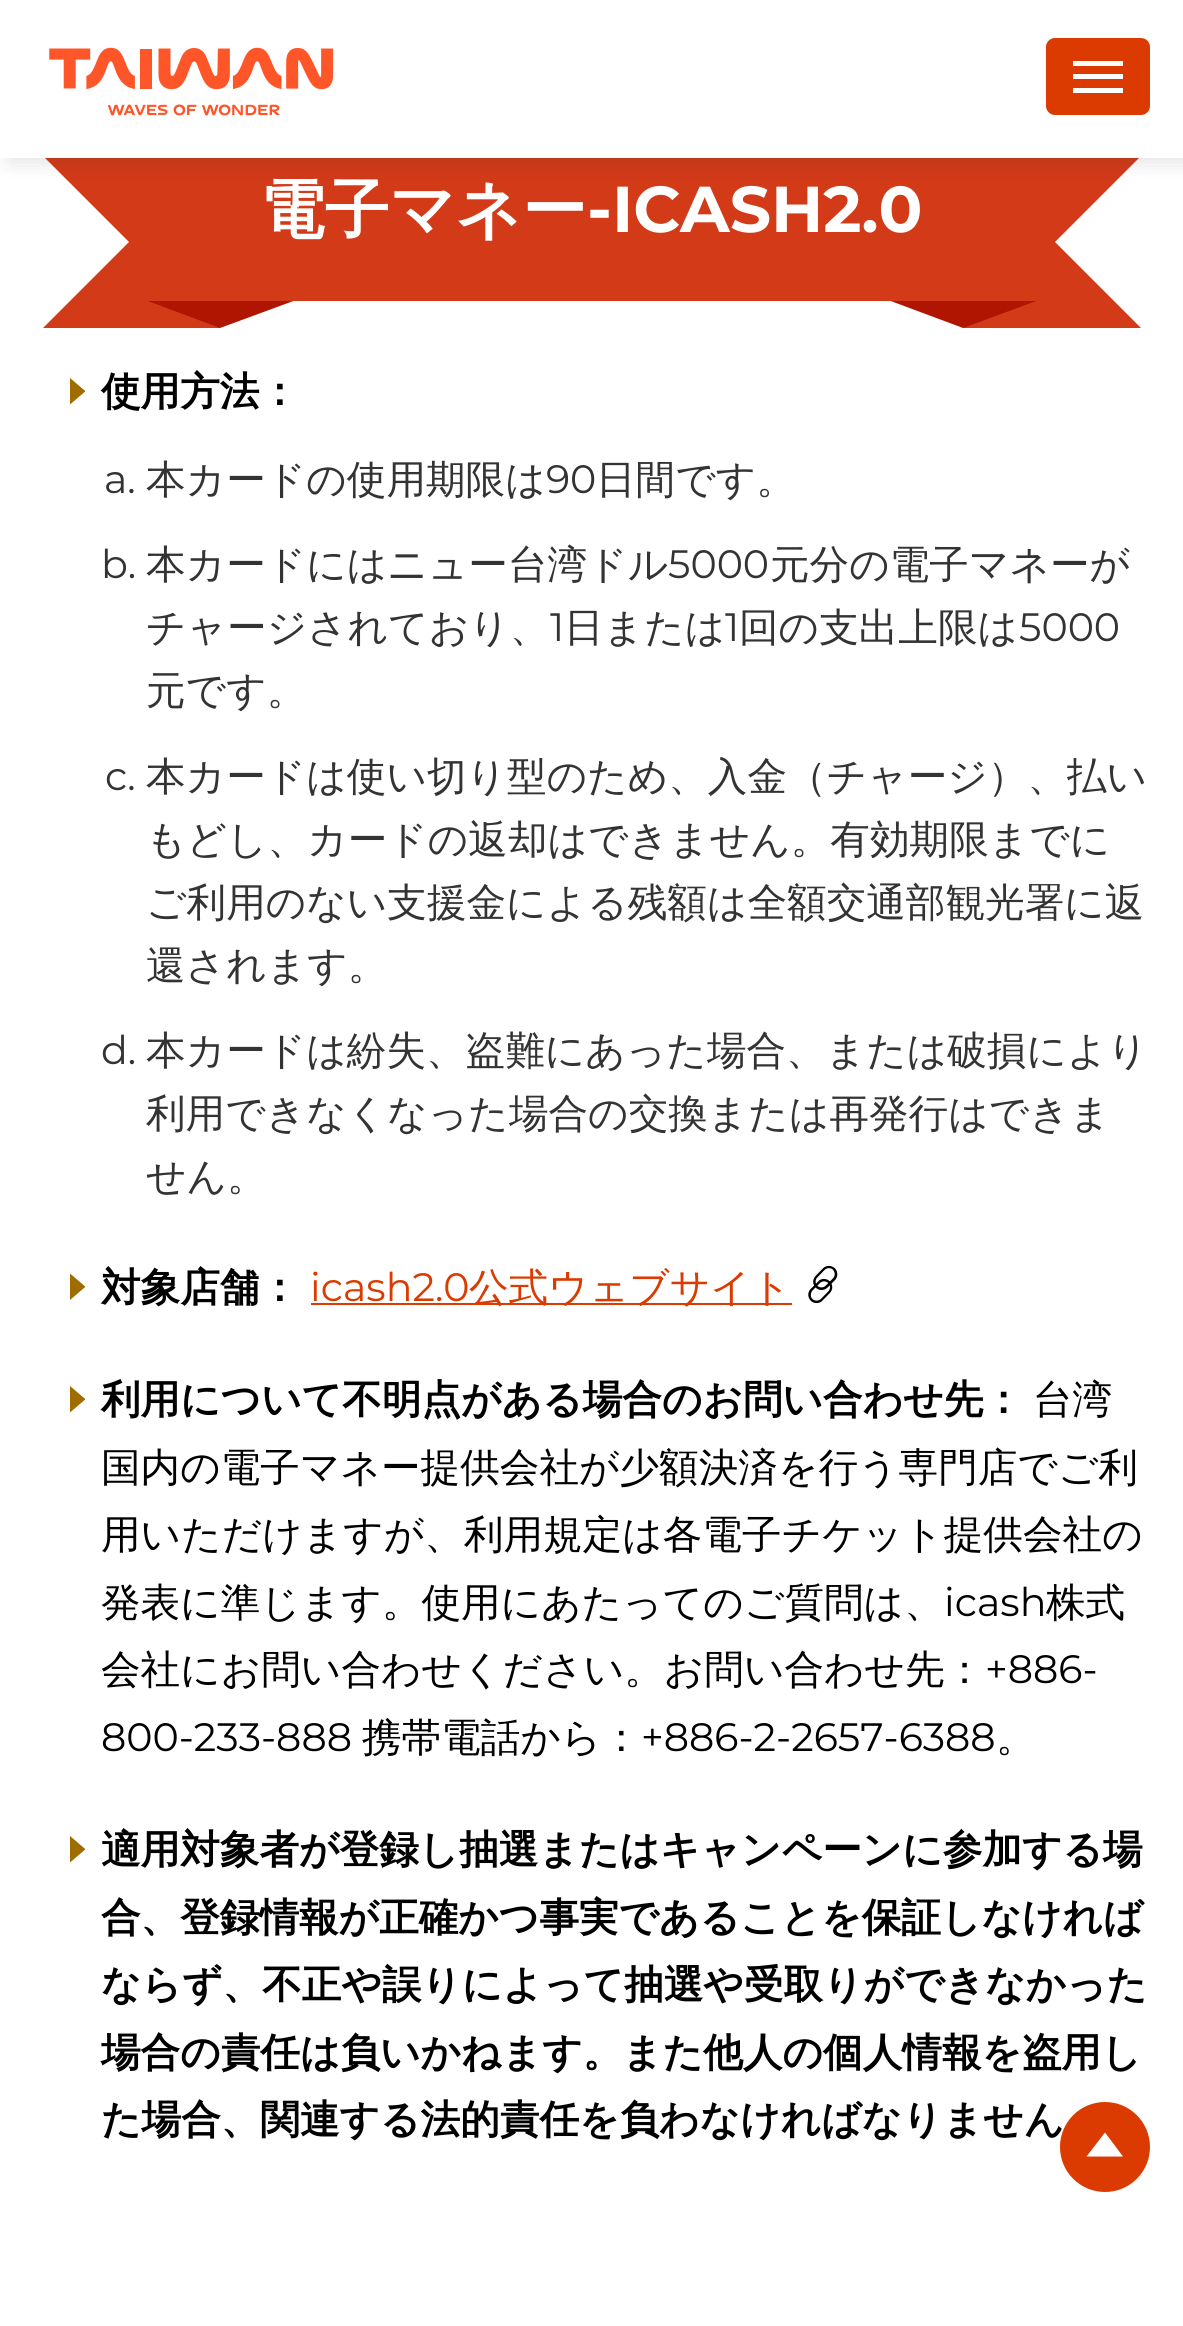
#include <cairo.h>
#include <math.h>
#include <stddef.h>

static cairo_t *c;
static void C(unsigned color){cairo_set_source_rgb(c, (color >> 16) / 255.0, (color >> 8 & 255) / 255.0, (color & 255) / 255.0);}
static void F(const char *family, double size, int italic, int bold){cairo_select_font_face(c, family, italic ? CAIRO_FONT_SLANT_ITALIC : CAIRO_FONT_SLANT_NORMAL,bold ? CAIRO_FONT_WEIGHT_BOLD : CAIRO_FONT_WEIGHT_NORMAL);cairo_set_font_size(c, size);}
static void T(double x, double y, const char *s){cairo_move_to(c, x, y);cairo_show_text(c, s);}
static void R(double x, double y, double w, double h){cairo_rectangle(c, x, y, w, h);cairo_fill(c);}
static void Q(double x, double y, double w, double h, double r){cairo_new_sub_path(c);cairo_arc(c, x + w - r, y + h - r, r, 0, M_PI / 2);cairo_arc(c, x + r, y + h - r, r, M_PI / 2, M_PI);cairo_arc(c, x + r, y + r, r, M_PI, 1.5 * M_PI);cairo_arc(c, x + w - r, y + r, r, 1.5 * M_PI, 2 * M_PI);cairo_close_path(c);}
static void S(double x, double y, double w, double h, double r, double blur, double alpha){cairo_push_group_with_content(c, CAIRO_CONTENT_ALPHA);cairo_set_operator(c, CAIRO_OPERATOR_SOURCE);for (int i = 15; i >= -15 && fmin(w, h) + blur * i / 3 > 0; i -= 2) {double e = blur * i / 6;cairo_set_source_rgba(c, 0, 0, 0, alpha * erfc((i - 1) / 8.5) / 2);Q(x - e, y - e, w + 2 * e, h + 2 * e, fmax(0, fmin(r + e + blur * .6, fmin(w, h) / 2 + e)));cairo_fill(c);}cairo_pattern_t *soft = cairo_pop_group(c);cairo_mask(c, soft);cairo_pattern_destroy(soft);}
static void I(const char *path, double x, double y, double w, double h){cairo_surface_t *image = cairo_image_surface_create_from_png(path);cairo_save(c);cairo_set_source_surface(c, image, x, y);cairo_rectangle(c, x, y, w, h);cairo_fill(c);cairo_restore(c);cairo_surface_destroy(image);}
int main(void) {
cairo_surface_t *surface = cairo_image_surface_create(CAIRO_FORMAT_RGB24, 1183, 2326);
c = cairo_create(surface);
cairo_font_options_t *options = cairo_font_options_create();
cairo_font_options_set_hint_metrics(options, CAIRO_HINT_METRICS_OFF);
cairo_font_options_set_hint_style(options, CAIRO_HINT_STYLE_NONE);
cairo_set_font_options(c, options);
cairo_set_miter_limit(c, 4);
C(0xffffff);
cairo_paint(c);
C(0xd23a18);
cairo_new_path(c);
cairo_move_to(c,220,328);
cairo_line_to(c,43,328);
cairo_line_to(c,129,242);
cairo_line_to(c,43,156);
cairo_line_to(c,220,156);
cairo_close_path(c);
cairo_fill(c);
cairo_new_path(c);
cairo_move_to(c,963,328);
cairo_line_to(c,1141,328);
cairo_line_to(c,1055,242);
cairo_line_to(c,1141,156);
cairo_line_to(c,963,156);
cairo_close_path(c);
cairo_fill(c);
C(0xaf1500);
cairo_new_path(c);
cairo_move_to(c,296,300);
cairo_line_to(c,220,328);
cairo_line_to(c,145,300);
cairo_fill(c);
cairo_new_path(c);
cairo_move_to(c,888,300);
cairo_line_to(c,963,328);
cairo_line_to(c,1039,300);
cairo_fill(c);
C(0xd23a18);
R(145,158,894,143);
C(0x3c3c3c);
S(9,9,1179,153,0,10,.15);
C(0xffffff);
R(0,0,1183,158);
I("1.png",49,47,285,69);
C(0xdb3b00);
Q(1046,38,104,77,9);
cairo_fill(c);
C(0xffffff);
R(1073,61,50,5);
R(1073,74,50,5);
R(1073,88,50,5);
F("WenQuanYi Zen Hei",64.75,0,1);
T(260,232,"電子マネー");
F("Montserrat",64.75,0,1);
T(587,232,"-ICASH2.0");
I("2.png",70,378,16,27);
F("WenQuanYi Zen Hei",39.6,0,1);
C(0x000000);
T(101,405,"使用方法：");
F("Montserrat",39.6,0,0);
C(0x333333);
T(104,493,"a.");
F("WenQuanYi Zen Hei Medium",39.6,0,0);
T(146,493,"本カードの使用期限は");
F("Montserrat",39.6,0,0);
T(546,493,"90");
F("WenQuanYi Zen Hei Medium",39.6,0,0);
T(596,493,"日間です。");
F("Montserrat",39.6,0,0);
T(101,578,"b.");
F("WenQuanYi Zen Hei Medium",39.6,0,0);
T(146,578,"本カードにはニュー台湾ドル");
F("Montserrat",39.6,0,0);
T(668,578,"5000");
F("WenQuanYi Zen Hei Medium",39.6,0,0);
T(770,578,"元分の電子マネーが");
T(146,641,"チャージされており、");
F("Montserrat",39.6,0,0);
T(550,641,"1");
F("WenQuanYi Zen Hei Medium",39.6,0,0);
T(564,641,"日または");
F("Montserrat",39.6,0,0);
T(725,641,"1");
F("WenQuanYi Zen Hei Medium",39.6,0,0);
T(739,641,"回の支出上限は");
F("Montserrat",39.6,0,0);
T(1019,641,"5000");
F("WenQuanYi Zen Hei Medium",39.6,0,0);
T(146,704,"元です。");
F("Montserrat",39.6,0,0);
T(105,790,"c.");
F("WenQuanYi Zen Hei Medium",39.6,0,0);
T(146,790,"本カードは使い切り型のため、入金（チャージ）、払い");
T(146,853,"もどし、カードの返却はできません。有効期限までに");
T(146,916,"ご利用のない支援金による残額は全額交通部観光署に返");
T(146,979,"還されます。");
F("Montserrat",39.6,0,0);
T(101,1064,"d.");
F("WenQuanYi Zen Hei Medium",39.6,0,0);
T(146,1064,"本カードは紛失、盗難にあった場合、または破損により");
T(146,1127,"利用できなくなった場合の交換または再発行はできま");
T(146,1190,"せん。");
I("3.png",70,1273,16,27);
F("WenQuanYi Zen Hei",39.6,0,1);
C(0x000000);
T(101,1301,"対象店舗：");
F("Montserrat",39.6,0,0);
C(0xdb3b00);
T(310,1301,"icash2.0");
R(311,1303,481,2);
F("WenQuanYi Zen Hei Medium",39.6,0,0);
T(469,1301,"公式ウェブサイト");
I("4.png",808,1265,30,39);
I("2.png",70,1386,16,27);
F("WenQuanYi Zen Hei",39.6,0,1);
C(0x000000);
T(101,1413,"利用について不明点がある場合のお問い合わせ先：");
F("WenQuanYi Zen Hei Medium",39.6,0,0);
T(1033,1413,"台湾");
T(101,1481,"国内の電子マネー提供会社が少額決済を行う専門店でご利");
T(101,1548,"用いただけますが、利用規定は各電子チケット提供会社の");
T(101,1616,"発表に準じます。使用にあたってのご質問は、");
F("Montserrat",39.6,0,0);
T(944,1616,"icash");
F("WenQuanYi Zen Hei Medium",39.6,0,0);
T(1046,1616,"株式");
T(101,1683,"会社にお問い合わせください。お問い合わせ先：");
F("Montserrat",39.6,0,0);
T(985,1683,"+886-");
T(101,1751,"800-233-888");
F("WenQuanYi Zen Hei Medium",39.6,0,0);
T(362,1751,"携帯電話から：");
F("Montserrat",39.6,0,0);
T(641,1751,"+886-2-2657-6388");
F("WenQuanYi Zen Hei Medium",39.6,0,0);
T(996,1751,"。");
I("2.png",70,1836,16,27);
F("WenQuanYi Zen Hei",39.6,0,1);
T(101,1863,"適用対象者が登録し抽選またはキャンペーンに参加する場");
T(101,1931,"合、登録情報が正確かつ事実であることを保証しなければ");
T(101,1998,"ならず、不正や誤りによって抽選や受取りができなかった");
T(101,2066,"場合の責任は負いかねます。また他人の個人情報を盗用し");
T(101,2133,"た場合、関連する法的責任を負わなければなりません");
C(0xdb3b00);
cairo_new_path(c);
cairo_arc(c,1105,2147,45,0,2 * M_PI);
cairo_fill(c);
C(0xffffff);
cairo_new_path(c);
cairo_move_to(c,1105,2132.5);
cairo_line_to(c,1123,2156.5);
cairo_line_to(c,1086.5,2156.5);
cairo_close_path(c);
cairo_fill(c);
cairo_surface_write_to_png(surface, "o.png");
cairo_font_options_destroy(options);
cairo_destroy(c);
cairo_surface_destroy(surface);
return 0;
}
